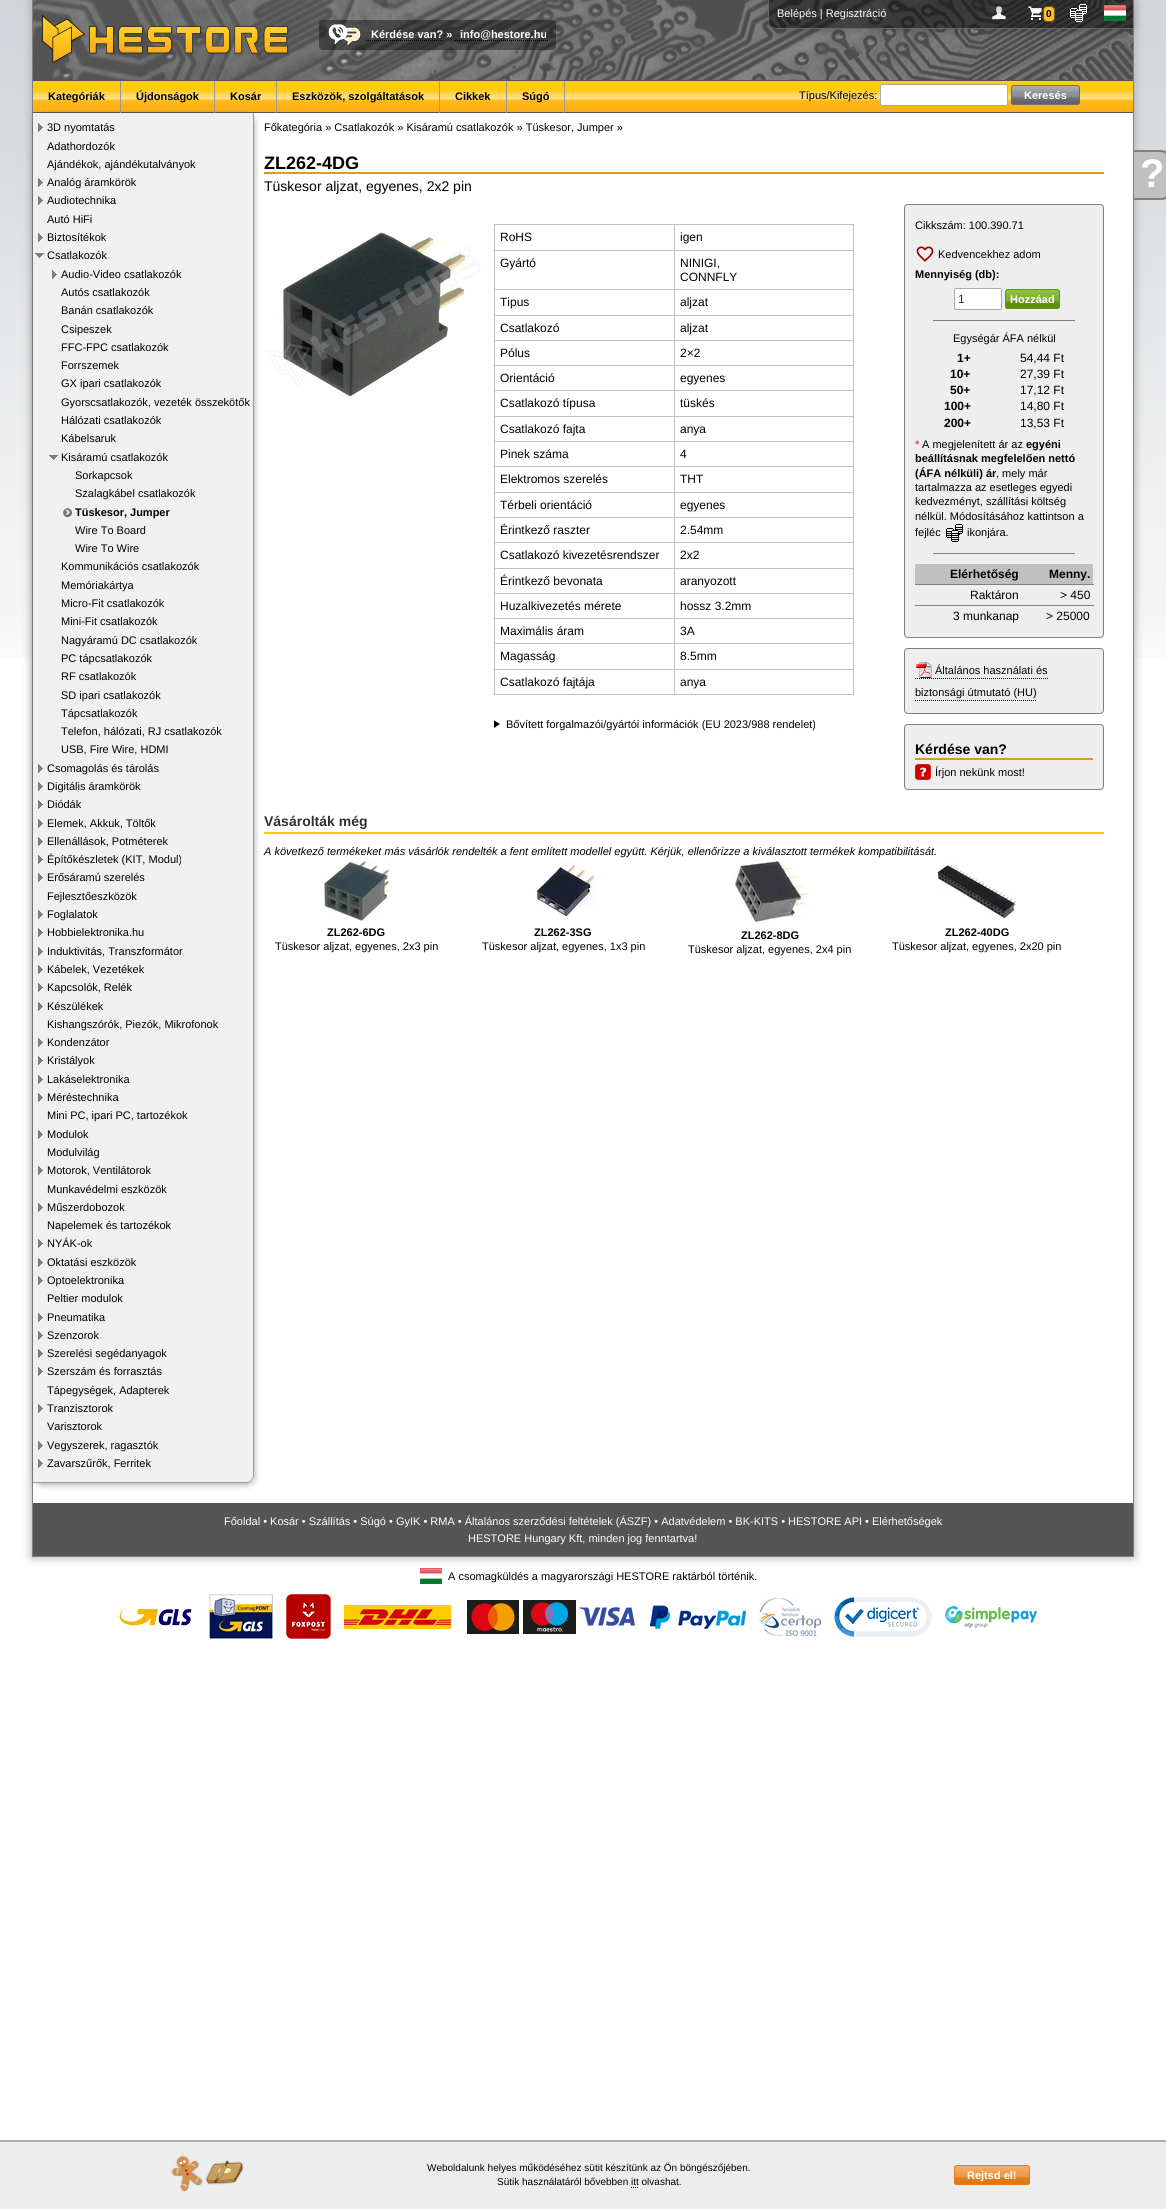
#include <cairo.h>
#include <math.h>
#include <stddef.h>

static cairo_t *c;
static void C(unsigned color){cairo_set_source_rgb(c, (color >> 16) / 255.0, (color >> 8 & 255) / 255.0, (color & 255) / 255.0);}
static void F(const char *family, double size, int italic, int bold){cairo_select_font_face(c, family, italic ? CAIRO_FONT_SLANT_ITALIC : CAIRO_FONT_SLANT_NORMAL,bold ? CAIRO_FONT_WEIGHT_BOLD : CAIRO_FONT_WEIGHT_NORMAL);cairo_set_font_size(c, size);}
static void T(double x, double y, const char *s){cairo_move_to(c, x, y);cairo_show_text(c, s);}
static void R(double x, double y, double w, double h){cairo_rectangle(c, x, y, w, h);cairo_fill(c);}
static void Q(double x, double y, double w, double h, double r){cairo_new_sub_path(c);cairo_arc(c, x + w - r, y + h - r, r, 0, M_PI / 2);cairo_arc(c, x + r, y + h - r, r, M_PI / 2, M_PI);cairo_arc(c, x + r, y + r, r, M_PI, 1.5 * M_PI);cairo_arc(c, x + w - r, y + r, r, 1.5 * M_PI, 2 * M_PI);cairo_close_path(c);}
static void S(double x, double y, double w, double h, double r, double blur, double alpha){cairo_push_group_with_content(c, CAIRO_CONTENT_ALPHA);cairo_set_operator(c, CAIRO_OPERATOR_SOURCE);for (int i = 15; i >= -15 && fmin(w, h) + blur * i / 3 > 0; i -= 2) {double e = blur * i / 6;cairo_set_source_rgba(c, 0, 0, 0, alpha * erfc((i - 1) / 8.5) / 2);Q(x - e, y - e, w + 2 * e, h + 2 * e, fmax(0, fmin(r + e + blur * .6, fmin(w, h) / 2 + e)));cairo_fill(c);}cairo_pattern_t *soft = cairo_pop_group(c);cairo_mask(c, soft);cairo_pattern_destroy(soft);}
static void I(const char *path, double x, double y, double w, double h){cairo_surface_t *image = cairo_image_surface_create_from_png(path);cairo_save(c);cairo_set_source_surface(c, image, x, y);cairo_rectangle(c, x, y, w, h);cairo_fill(c);cairo_restore(c);cairo_surface_destroy(image);}
int main(void) {
cairo_surface_t *surface = cairo_image_surface_create(CAIRO_FORMAT_RGB24, 1166, 2209);
c = cairo_create(surface);
cairo_font_options_t *options = cairo_font_options_create();
cairo_font_options_set_hint_metrics(options, CAIRO_HINT_METRICS_OFF);
cairo_font_options_set_hint_style(options, CAIRO_HINT_STYLE_NONE);
cairo_set_font_options(c, options);
cairo_set_miter_limit(c, 4);
C(0xffffff);
cairo_paint(c);
I("1.png",0,0,1166,658);
C(0xa5a5a5);
S(32,0,1102,1557,0,5,1);
C(0xffffff);
R(33,113,1100,1390);
C(0x808080);
R(1133,0,1,1557);
R(32,1556,1102,1);
R(32,0,1,1557);
I("2.png",33,0,1100,80);
I("3.png",42,15,247,49);
cairo_set_source_rgba(c,0,0,0,0.4);
Q(319,20,237,30,4);
cairo_fill(c);
I("4.png",328,24,33,22);
F("Liberation Sans",11,0,1);
C(0xffffff);
T(371,38,"Kérdése van? »");
cairo_new_path(c);
cairo_move_to(c,366,40.5);
cairo_line_to(c,443,40.5);
C(0x000000);
cairo_set_line_width(c,1);
cairo_set_dash(c,(double[]){1,1},2,0);
cairo_stroke(c);
C(0xffffff);
T(460,38,"info@hestore.hu");
cairo_new_path(c);
cairo_move_to(c,455,40.5);
cairo_line_to(c,548,40.5);
C(0x000000);
cairo_stroke(c);
cairo_save(c);
cairo_set_fill_rule(c,CAIRO_FILL_RULE_EVEN_ODD);
cairo_new_path(c);
cairo_move_to(c,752,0);
cairo_line_to(c,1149,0);
cairo_line_to(c,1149,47);
cairo_line_to(c,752,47);
cairo_close_path(c);
cairo_move_to(c,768,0);
cairo_line_to(c,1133,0);
cairo_line_to(c,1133,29);
cairo_line_to(c,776,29);
cairo_curve_to(c,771.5,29,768,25.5,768,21);
cairo_close_path(c);
cairo_clip(c);
C(0x000000);
S(768,2,365,29,8,5,.2);
cairo_restore(c);
cairo_set_source_rgba(c,0,0,0,0.5);
cairo_new_path(c);
cairo_move_to(c,768,0);
cairo_line_to(c,1133,0);
cairo_line_to(c,1133,29);
cairo_line_to(c,776,29);
cairo_curve_to(c,771.5,29,768,25.5,768,21);
cairo_close_path(c);
cairo_fill(c);
C(0x666666);
cairo_set_fill_rule(c,CAIRO_FILL_RULE_EVEN_ODD);
cairo_new_path(c);
cairo_move_to(c,768,0);
cairo_line_to(c,1133,0);
cairo_line_to(c,1133,29);
cairo_line_to(c,776,29);
cairo_curve_to(c,772,29,768,25,768,21);
cairo_close_path(c);
cairo_move_to(c,769,0);
cairo_line_to(c,1133,0);
cairo_line_to(c,1133,28);
cairo_line_to(c,776,28);
cairo_curve_to(c,772,28,769,25,769,21);
cairo_close_path(c);
cairo_fill(c);
F("Liberation Sans",11,0,0);
C(0xffffff);
T(777,17,"Belépés | Regisztráció");
I("5.png",992,6,14,14);
I("6.png",1028,6,14,14);
C(0xfdbf21);
Q(1043.5,6.5,11,15,3.5);
cairo_fill_preserve(c);
C(0x785a10);
cairo_set_dash(c,NULL,0,0);
cairo_stroke(c);
F("Liberation Sans",10,0,1);
C(0x000000);
T(1046,17,"0");
I("7.png",1070,4,17,18);
I("8.png",1104,5,22,16);
I("9.png",33,81,1100,31);
C(0x555555);
R(33,80,1100,1);
R(33,112,1100,1);
C(0x000000);
S(34,115,221,1370,8,3,.3);
C(0x999999);
R(120,81,1,32);
F("Liberation Sans",11,0,1);
C(0x000000);
T(48,100,"Kategóriák");
C(0x999999);
R(214,81,1,32);
C(0x000000);
T(136,100,"Újdonságok");
C(0x999999);
R(276,81,1,32);
C(0x000000);
T(230,100,"Kosár");
C(0x999999);
R(439,81,1,32);
C(0x000000);
T(292,100,"Eszközök, szolgáltatások");
C(0x999999);
R(506,81,1,32);
C(0x000000);
T(455,100,"Cikkek");
C(0x999999);
R(564,81,1,32);
C(0x000000);
T(522,100,"Súgó");
F("Liberation Sans",11,0,0);
T(799,99,"Típus/Kifejezés:");
C(0xffffff);
Q(880.5,84.5,127,21,1.5);
cairo_fill_preserve(c);
C(0xaaaaaa);
cairo_stroke(c);
I("10.png",1011,86,69,19);
Q(1011.5,85.5,68,19,2.5);
C(0x6a6f74);
cairo_stroke(c);
F("Liberation Sans",11,0,1);
C(0xffffff);
T(1024,99,"Keresés");
C(0xf0f0f0);
cairo_new_path(c);
cairo_move_to(c,33,113);
cairo_line_to(c,254,113);
cairo_line_to(c,254,1475);
cairo_curve_to(c,254,1479.5,250.5,1483,246,1483);
cairo_line_to(c,33,1483);
cairo_close_path(c);
cairo_fill(c);
C(0x999999);
cairo_new_path(c);
cairo_move_to(c,33,113);
cairo_line_to(c,254,113);
cairo_line_to(c,254,1475);
cairo_curve_to(c,254,1479,250,1483,246,1483);
cairo_line_to(c,33,1483);
cairo_close_path(c);
cairo_move_to(c,33,113);
cairo_line_to(c,253,113);
cairo_line_to(c,253,1475);
cairo_curve_to(c,253,1479,250,1482,246,1482);
cairo_line_to(c,33,1482);
cairo_close_path(c);
cairo_fill(c);
I("11.png",38,123,5,9);
F("Liberation Sans",11,0,0);
C(0x000000);
T(47,131,"3D nyomtatás");
T(47,150,"Adathordozók");
T(47,168,"Ajándékok, ajándékutalványok");
I("11.png",38,178,5,9);
T(47,186,"Analóg áramkörök");
I("11.png",38,196,5,9);
T(47,204,"Audiotechnika");
T(47,223,"Autó HiFi");
I("11.png",38,233,5,9);
T(47,241,"Biztosítékok");
I("12.png",35,253,9,5);
T(47,259,"Csatlakozók");
I("11.png",52,270,5,9);
T(61,278,"Audio-Video csatlakozók");
T(61,296,"Autós csatlakozók");
T(61,314,"Banán csatlakozók");
T(61,333,"Csipeszek");
T(61,351,"FFC-FPC csatlakozók");
T(61,369,"Forrszemek");
T(61,387,"GX ipari csatlakozók");
T(61,406,"Gyorscsatlakozók, vezeték összekötők");
T(61,424,"Hálózati csatlakozók");
T(61,442,"Kábelsaruk");
I("12.png",49,455,9,5);
T(61,461,"Kisáramú csatlakozók");
T(75,479,"Sorkapcsok");
T(75,497,"Szalagkábel csatlakozók");
I("13.png",63,508,9,9);
F("Liberation Sans",11,0,1);
T(75,516,"Tüskesor, Jumper");
F("Liberation Sans",11,0,0);
T(75,534,"Wire To Board");
T(75,552,"Wire To Wire");
T(61,570,"Kommunikációs csatlakozók");
T(61,589,"Memóriakártya");
T(61,607,"Micro-Fit csatlakozók");
T(61,625,"Mini-Fit csatlakozók");
T(61,644,"Nagyáramú DC csatlakozók");
T(61,662,"PC tápcsatlakozók");
T(61,680,"RF csatlakozók");
T(61,699,"SD ipari csatlakozók");
T(61,717,"Tápcsatlakozók");
T(61,735,"Telefon, hálózati, RJ csatlakozók");
T(61,753,"USB, Fire Wire, HDMI");
I("11.png",38,764,5,9);
T(47,772,"Csomagolás és tárolás");
I("11.png",38,782,5,9);
T(47,790,"Digitális áramkörök");
I("11.png",38,800,5,9);
T(47,808,"Diódák");
I("11.png",38,819,5,9);
T(47,827,"Elemek, Akkuk, Töltők");
I("11.png",38,837,5,9);
T(47,845,"Ellenállások, Potméterek");
I("11.png",38,855,5,9);
T(47,863,"Építőkészletek (KIT, Modul)");
I("11.png",38,873,5,9);
T(47,881,"Erősáramú szerelés");
T(47,900,"Fejlesztőeszközök");
I("11.png",38,910,5,9);
T(47,918,"Foglalatok");
I("11.png",38,928,5,9);
T(47,936,"Hobbielektronika.hu");
I("11.png",38,947,5,9);
T(47,955,"Induktivitás, Transzformátor");
I("11.png",38,965,5,9);
T(47,973,"Kábelek, Vezetékek");
I("11.png",38,983,5,9);
T(47,991,"Kapcsolók, Relék");
I("11.png",38,1002,5,9);
T(47,1010,"Készülékek");
T(47,1028,"Kishangszórók, Piezók, Mikrofonok");
I("11.png",38,1038,5,9);
T(47,1046,"Kondenzátor");
I("11.png",38,1056,5,9);
T(47,1064,"Kristályok");
I("11.png",38,1075,5,9);
T(47,1083,"Lakáselektronika");
I("11.png",38,1093,5,9);
T(47,1101,"Méréstechnika");
T(47,1119,"Mini PC, ipari PC, tartozékok");
I("11.png",38,1130,5,9);
T(47,1138,"Modulok");
T(47,1156,"Modulvilág");
I("11.png",38,1166,5,9);
T(47,1174,"Motorok, Ventilátorok");
T(47,1193,"Munkavédelmi eszközök");
I("11.png",38,1203,5,9);
T(47,1211,"Műszerdobozok");
T(47,1229,"Napelemek és tartozékok");
I("11.png",38,1239,5,9);
T(47,1247,"NYÁK-ok");
I("11.png",38,1258,5,9);
T(47,1266,"Oktatási eszközök");
I("11.png",38,1276,5,9);
T(47,1284,"Optoelektronika");
T(47,1302,"Peltier modulok");
I("11.png",38,1313,5,9);
T(47,1321,"Pneumatika");
I("11.png",38,1331,5,9);
T(47,1339,"Szenzorok");
I("11.png",38,1349,5,9);
T(47,1357,"Szerelési segédanyagok");
I("11.png",38,1367,5,9);
T(47,1375,"Szerszám és forrasztás");
T(47,1394,"Tápegységek, Adapterek");
I("11.png",38,1404,5,9);
T(47,1412,"Tranzisztorok");
T(47,1430,"Varisztorok");
I("11.png",38,1441,5,9);
T(47,1449,"Vegyszerek, ragasztók");
I("11.png",38,1459,5,9);
T(47,1467,"Zavarszűrők, Ferritek");
T(264,131,"Főkategória » Csatlakozók » Kisáramú csatlakozók » Tüskesor, Jumper »");
C(0xe09a16);
R(264,172,840,2);
F("Liberation Sans",18,0,1);
C(0x000000);
T(264,169,"ZL262-4DG");
F("Liberation Sans",14,0,0);
T(264,191,"Tüskesor aljzat, egyenes, 2x2 pin");
I("14.png",264,232,219,165);
C(0xc0c0c0);
R(674,224,180,1);
R(674,250,180,1);
R(674,289,180,1);
R(674,315,180,1);
R(674,340,180,1);
R(674,365,180,1);
R(674,390,180,1);
R(674,416,180,1);
R(674,441,180,1);
R(674,466,180,1);
R(674,492,180,1);
R(674,517,180,1);
R(674,542,180,1);
R(674,568,180,1);
R(674,593,180,1);
R(674,618,180,1);
R(674,643,180,1);
R(674,669,180,1);
R(853,669,1,26);
R(674,694,180,1);
R(674,669,1,26);
R(494,669,181,1);
R(674,643,1,27);
R(494,643,181,1);
R(674,618,1,26);
R(494,618,181,1);
R(674,593,1,26);
R(494,593,181,1);
R(674,568,1,26);
R(494,568,181,1);
R(674,542,1,27);
R(494,542,181,1);
R(674,517,1,26);
R(494,517,181,1);
R(674,492,1,26);
R(494,492,181,1);
R(674,466,1,27);
R(494,466,181,1);
R(674,441,1,26);
R(494,441,181,1);
R(674,416,1,26);
R(494,416,181,1);
R(674,390,1,27);
R(494,390,181,1);
R(674,365,1,26);
R(494,365,181,1);
R(674,340,1,26);
R(494,340,181,1);
R(674,315,1,26);
R(494,315,181,1);
R(674,289,1,27);
R(494,289,181,1);
R(674,250,1,40);
R(494,250,181,1);
R(674,224,1,27);
R(494,224,181,1);
R(494,694,181,1);
R(494,669,1,26);
R(494,643,1,27);
R(494,618,1,26);
R(494,593,1,26);
R(494,568,1,26);
R(494,542,1,27);
R(494,517,1,26);
R(494,492,1,26);
R(494,466,1,27);
R(494,441,1,26);
R(494,416,1,26);
R(494,390,1,27);
R(494,365,1,26);
R(494,340,1,26);
R(494,315,1,26);
R(494,289,1,27);
R(494,250,1,40);
R(494,224,1,27);
F("Liberation Sans",12,0,0);
C(0x000000);
T(500,241,"RoHS");
C(0xc0c0c0);
R(853,643,1,27);
R(853,618,1,26);
R(853,593,1,26);
R(853,568,1,26);
R(853,542,1,27);
R(853,517,1,26);
R(853,492,1,26);
R(853,466,1,27);
R(853,441,1,26);
R(853,416,1,26);
R(853,390,1,27);
R(853,365,1,26);
R(853,340,1,26);
R(853,315,1,26);
R(853,289,1,27);
R(853,250,1,40);
R(853,224,1,27);
C(0x000000);
T(680,241,"igen");
T(500,267,"Gyártó");
T(680,267,"NINIGI,");
T(680,281,"CONNFLY");
T(500,306,"Tipus");
T(680,306,"aljzat");
T(500,332,"Csatlakozó");
T(680,332,"aljzat");
T(500,357,"Pólus");
T(680,357,"2×2");
T(500,382,"Orientáció");
T(680,382,"egyenes");
T(500,407,"Csatlakozó típusa");
T(680,407,"tüskés");
T(500,433,"Csatlakozó fajta");
T(680,433,"anya");
T(500,458,"Pinek száma");
T(680,458,"4");
T(500,483,"Elektromos szerelés");
T(680,483,"THT");
T(500,509,"Térbeli orientáció");
T(680,509,"egyenes");
T(500,534,"Érintkező raszter");
T(680,534,"2.54mm");
T(500,559,"Csatlakozó kivezetésrendszer");
T(680,559,"2x2");
T(500,585,"Érintkező bevonata");
T(680,585,"aranyozott");
T(500,610,"Huzalkivezetés mérete");
T(680,610,"hossz 3.2mm");
T(500,635,"Maximális áram");
T(680,635,"3A");
T(500,660,"Magasság");
T(680,660,"8.5mm");
T(500,686,"Csatlakozó fajtája");
T(680,686,"anya");
cairo_set_fill_rule(c,CAIRO_FILL_RULE_WINDING);
cairo_new_path(c);
cairo_move_to(c,494,720.5);
cairo_line_to(c,500,724);
cairo_line_to(c,494,728);
cairo_close_path(c);
cairo_fill(c);
F("Liberation Sans",11,0,0);
T(506,728,"Bővített forgalmazói/gyártói információk (EU 2023/988 rendelet)");
C(0xeeeeee);
Q(904.5,204.5,199,433,3.5);
cairo_fill_preserve(c);
C(0x808080);
cairo_stroke(c);
C(0x000000);
T(915,229,"Cikkszám: 100.390.71");
I("15.png",916,246,18,16);
T(938,258,"Kedvencekhez adom");
F("Liberation Sans",11,0,1);
T(915,278,"Mennyiség (db):");
C(0xffffff);
Q(954.5,288.5,47,21,1.5);
cairo_fill_preserve(c);
C(0xaaaaaa);
cairo_stroke(c);
F("Liberation Sans",12,0,0);
C(0x303030);
T(958,303,"1");
I("16.png",1005,290,55,19);
Q(1005.5,289.5,54,19,2.5);
C(0x60950e);
cairo_stroke(c);
F("Liberation Sans",11,0,1);
C(0xffffff);
T(1010,303,"Hozzáad");
C(0x808080);
R(933,320,142,1);
F("Liberation Sans",11,0,0);
C(0x000000);
T(953,342,"Egységár ÁFA nélkül");
F("Liberation Sans",12,0,1);
T(957,362,"1+");
F("Liberation Sans",12,0,0);
T(1020,362,"54,44 Ft");
F("Liberation Sans",12,0,1);
T(950,378,"10+");
F("Liberation Sans",12,0,0);
T(1020,378,"27,39 Ft");
F("Liberation Sans",12,0,1);
T(950,394,"50+");
F("Liberation Sans",12,0,0);
T(1020,394,"17,12 Ft");
F("Liberation Sans",12,0,1);
T(944,410,"100+");
F("Liberation Sans",12,0,0);
T(1020,410,"14,80 Ft");
F("Liberation Sans",12,0,1);
T(944,427,"200+");
F("Liberation Sans",12,0,0);
T(1020,427,"13,53 Ft");
F("Liberation Sans",11,0,0);
C(0xff0000);
T(915,448,"*");
C(0x000000);
T(922,448,"A megjelenített ár az");
F("Liberation Sans",11,0,1);
T(1026,448,"egyéni");
T(915,462,"beállításnak megfelelően nettó");
T(915,477,"(ÁFA nélküli) ár");
F("Liberation Sans",11,0,0);
T(996,477,", mely már");
T(915,491,"tartalmazza az esetleges egyedi");
T(915,505,"kedvezményt, szállítási költség");
T(915,520,"nélkül. Módosításához kattintson a");
T(915,536,"fejléc");
I("17.png",946,524,17,18);
T(967,536,"ikonjára.");
C(0x808080);
R(933,553,142,1);
C(0xc0c0c0);
R(915,564,178,20);
F("Liberation Sans",12,0,1);
C(0x000000);
T(950,578,"Elérhetőség");
T(1049,578,"Menny.");
F("Liberation Sans",12,0,0);
T(970,599,"Raktáron");
C(0x808080);
R(915,584,179,1);
C(0x000000);
T(1060,599,"> 450");
T(953,620,"3 munkanap");
C(0x808080);
R(915,605,179,1);
C(0x000000);
T(1046,620,"> 25000");
C(0xeeeeee);
Q(904.5,648.5,199,65,3.5);
cairo_fill_preserve(c);
C(0x808080);
cairo_stroke(c);
I("18.png",916,662,16,16);
F("Liberation Sans",11,0,0);
C(0x000000);
T(935,674,"Általános használati és");
cairo_new_path(c);
cairo_move_to(c,915,678.5);
cairo_line_to(c,1048,678.5);
cairo_set_dash(c,(double[]){1,1},2,0);
cairo_stroke(c);
T(915,696,"biztonsági útmutató (HU)");
cairo_new_path(c);
cairo_move_to(c,915,700.5);
cairo_line_to(c,1037,700.5);
cairo_stroke(c);
C(0xeeeeee);
Q(904.5,724.5,199,65,3.5);
cairo_fill_preserve(c);
C(0x808080);
cairo_set_dash(c,NULL,0,0);
cairo_stroke(c);
C(0xe09a16);
R(915,758,178,2);
F("Liberation Sans",14,0,1);
C(0x000000);
T(915,754,"Kérdése van?");
I("19.png",915,764,16,16);
F("Liberation Sans",11,0,0);
T(935,776,"Írjon nekünk most!");
C(0xffcc00);
R(264,832,840,2);
F("Liberation Sans",14,0,1);
C(0x303030);
T(264,826,"Vásárolták még");
F("Liberation Sans",11,1,0);
C(0x000000);
T(264,855,"A következő termékeket más vásárlók rendelték a fent említett modellel együtt. Kérjük, ellenőrizze a kiválasztott termékek kompatibilitását.");
I("20.png",324,861,68,60);
F("Liberation Sans",11,0,1);
T(327,936,"ZL262-6DG");
F("Liberation Sans",11,0,0);
T(275,950,"Tüskesor aljzat, egyenes, 2x3 pin");
I("21.png",535,861,61,56);
F("Liberation Sans",11,0,1);
T(534,936,"ZL262-3SG");
F("Liberation Sans",11,0,0);
T(482,950,"Tüskesor aljzat, egyenes, 1x3 pin");
I("22.png",734,861,76,63);
F("Liberation Sans",11,0,1);
T(741,939,"ZL262-8DG");
F("Liberation Sans",11,0,0);
T(688,953,"Tüskesor aljzat, egyenes, 2x4 pin");
I("23.png",937,862,80,59);
F("Liberation Sans",11,0,1);
T(945,936,"ZL262-40DG");
F("Liberation Sans",11,0,0);
T(892,950,"Tüskesor aljzat, egyenes, 2x20 pin");
C(0x555555);
R(33,1503,1100,53);
C(0xffffff);
T(224,1525,"Főoldal • Kosár • Szállítás • Súgó • GyIK • RMA • Általános szerződési feltételek (ÁSZF) • Adatvédelem • BK-KITS • HESTORE API • Elérhetőségek");
T(468,1542,"HESTORE Hungary Kft, minden jog fenntartva!");
C(0xededed);
R(0,2142,1166,67);
C(0xadadad);
R(0,2140,1166,2);
I("24.png",171,2155,73,37);
F("Liberation Sans",10,0,0);
C(0x000000);
T(427,2171,"Weboldalunk helyes működéséhez sütit készítünk az Ön böngészőjében.");
T(497,2185,"Sütik használatáról bővebben itt olvashat.");
cairo_new_path(c);
cairo_move_to(c,631,2187.5);
cairo_line_to(c,632,2187.5);
cairo_move_to(c,633,2187.5);
cairo_line_to(c,634,2187.5);
cairo_move_to(c,635,2187.5);
cairo_line_to(c,636,2187.5);
cairo_move_to(c,637,2187.5);
cairo_line_to(c,638,2187.5);
cairo_stroke(c);
I("25.png",954,2166,76,19);
Q(954.5,2165.5,75,19,2.5);
C(0xe37d18);
cairo_stroke(c);
F("Liberation Sans",11,0,1);
C(0xffffff);
T(967,2179,"Rejtsd el!");
C(0xc0c0c0);
cairo_new_path(c);
cairo_move_to(c,1134,150);
cairo_line_to(c,1161,150);
cairo_curve_to(c,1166.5,150,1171,154.5,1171,160);
cairo_line_to(c,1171,190);
cairo_curve_to(c,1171,195.5,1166.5,200,1161,200);
cairo_line_to(c,1134,200);
cairo_close_path(c);
cairo_fill(c);
C(0x808080);
cairo_set_fill_rule(c,CAIRO_FILL_RULE_EVEN_ODD);
cairo_new_path(c);
cairo_move_to(c,1134,150);
cairo_line_to(c,1161,150);
cairo_curve_to(c,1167,150,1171,154,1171,160);
cairo_line_to(c,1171,190);
cairo_curve_to(c,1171,196,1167,200,1161,200);
cairo_line_to(c,1134,200);
cairo_close_path(c);
cairo_move_to(c,1134,152);
cairo_line_to(c,1161,152);
cairo_curve_to(c,1165,152,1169,156,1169,160);
cairo_line_to(c,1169,190);
cairo_curve_to(c,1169,194,1165,198,1161,198);
cairo_line_to(c,1134,198);
cairo_close_path(c);
cairo_fill(c);
F("Liberation Sans",40,0,1);
C(0xffffff);
T(1140,187,"?");
I("8.png",420,1568,22,16);
F("Liberation Sans",11,0,0);
C(0x000000);
T(448,1580,"A csomagküldés a magyarországi HESTORE raktárból történik.");
I("26.png",119,1606,73,20);
I("27.png",209,1594,64,45);
I("28.png",286,1594,45,45);
I("29.png",344,1605,107,24);
I("30.png",467,1600,168,34);
I("31.png",650,1605,96,24);
I("32.png",759,1598,62,38);
I("33.png",834,1597,98,40);
I("34.png",945,1606,92,22);
cairo_surface_write_to_png(surface, "o.png");
cairo_font_options_destroy(options);
cairo_destroy(c);
cairo_surface_destroy(surface);
return 0;
}
